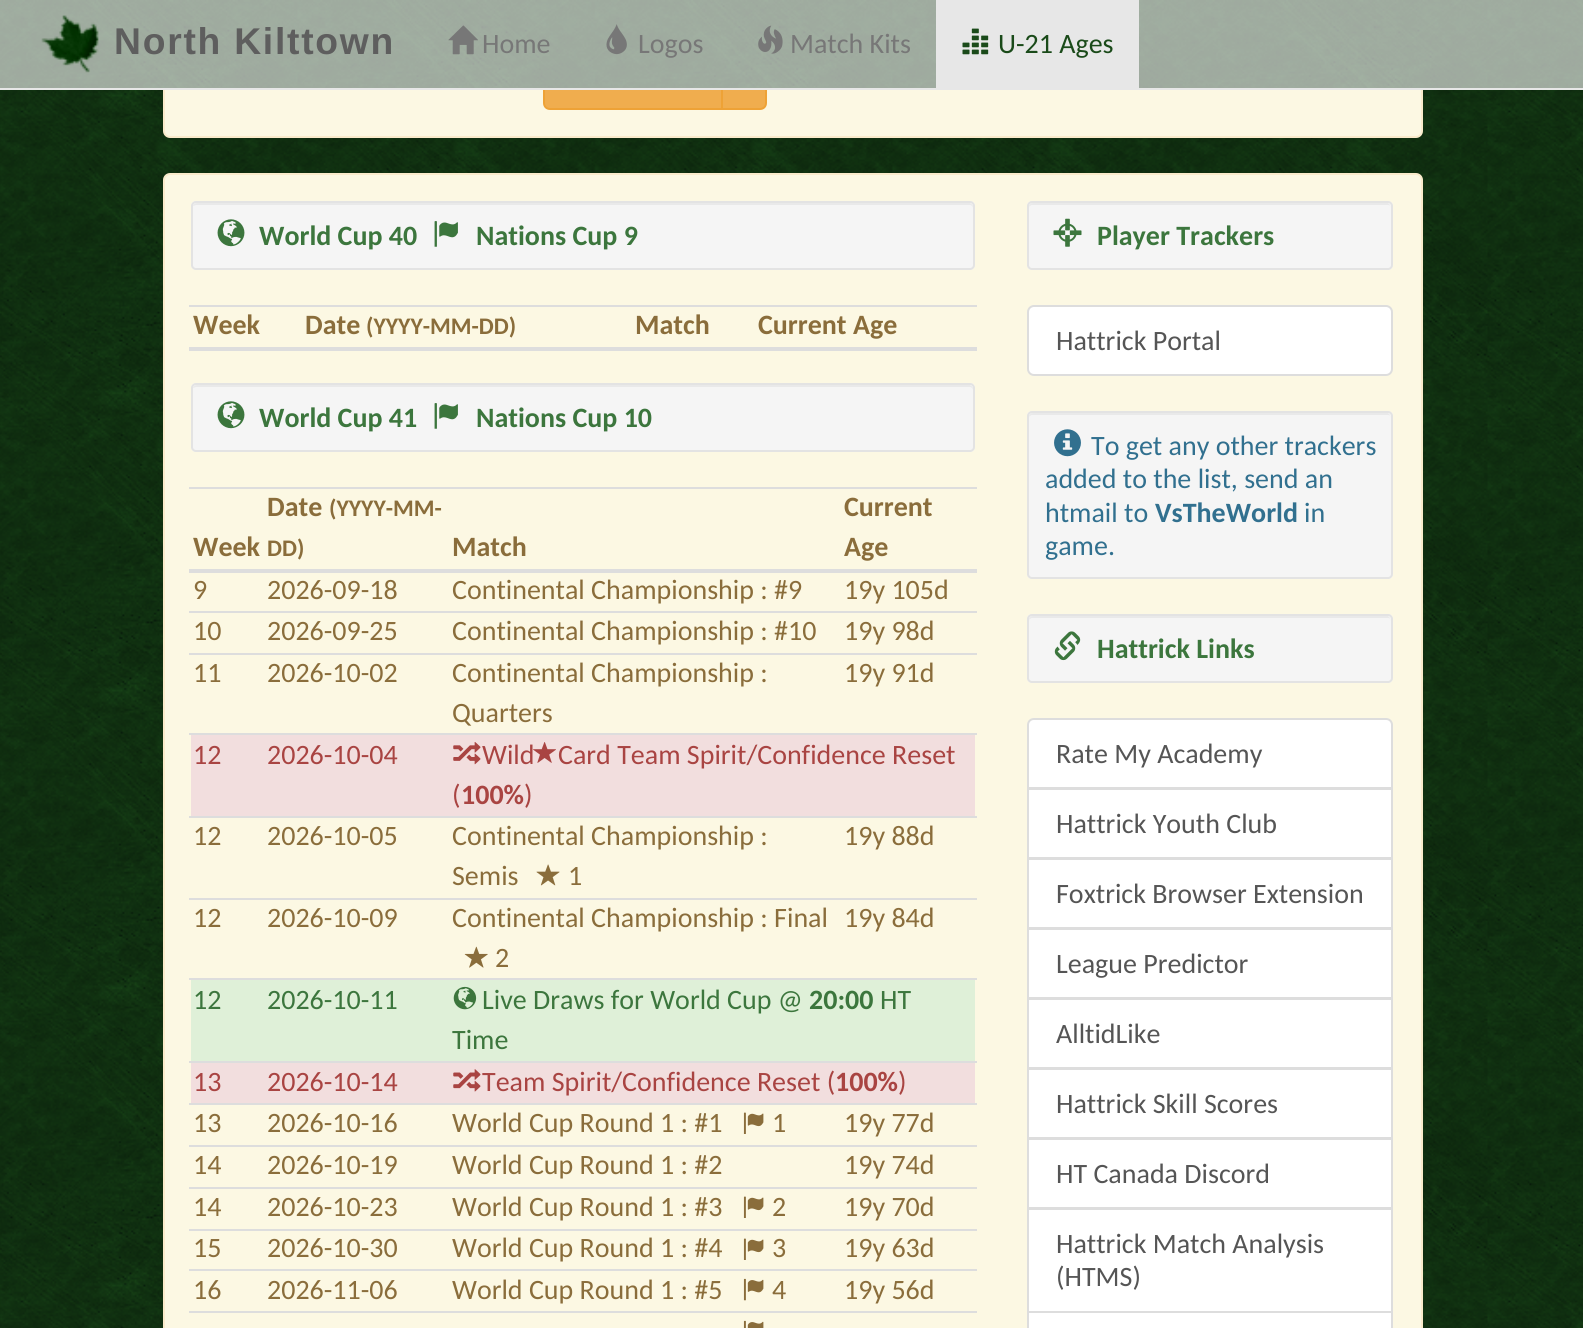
#include <cairo.h>
#include <math.h>
#include <stddef.h>

static cairo_t *c;
static void C(unsigned color){cairo_set_source_rgb(c, (color >> 16) / 255.0, (color >> 8 & 255) / 255.0, (color & 255) / 255.0);}
static void F(const char *family, double size, int italic, int bold){cairo_select_font_face(c, family, italic ? CAIRO_FONT_SLANT_ITALIC : CAIRO_FONT_SLANT_NORMAL,bold ? CAIRO_FONT_WEIGHT_BOLD : CAIRO_FONT_WEIGHT_NORMAL);cairo_set_font_size(c, size);}
static void T(double x, double y, const char *s){cairo_move_to(c, x, y);cairo_show_text(c, s);}
static void L(double x, double y, const char *s, double letter, double word){cairo_move_to(c, x, y);while (*s) {char ch[5] = {0};int n = 0;do ch[n++] = *s++; while ((*s & 0xC0) == 0x80);cairo_show_text(c, ch);cairo_rel_move_to(c, letter + word * (*ch == ' '), 0);}}
static void R(double x, double y, double w, double h){cairo_rectangle(c, x, y, w, h);cairo_fill(c);}
static void Q(double x, double y, double w, double h, double r){cairo_new_sub_path(c);cairo_arc(c, x + w - r, y + h - r, r, 0, M_PI / 2);cairo_arc(c, x + r, y + h - r, r, M_PI / 2, M_PI);cairo_arc(c, x + r, y + r, r, M_PI, 1.5 * M_PI);cairo_arc(c, x + w - r, y + r, r, 1.5 * M_PI, 2 * M_PI);cairo_close_path(c);}
static void I(const char *path, double x, double y, double w, double h){cairo_surface_t *image = cairo_image_surface_create_from_png(path);cairo_save(c);cairo_set_source_surface(c, image, x, y);cairo_rectangle(c, x, y, w, h);cairo_fill(c);cairo_restore(c);cairo_surface_destroy(image);}
int main(void) {
cairo_surface_t *surface = cairo_image_surface_create(CAIRO_FORMAT_RGB24, 1583, 1328);
c = cairo_create(surface);
cairo_font_options_t *options = cairo_font_options_create();
cairo_font_options_set_hint_metrics(options, CAIRO_HINT_METRICS_OFF);
cairo_font_options_set_hint_style(options, CAIRO_HINT_STYLE_NONE);
cairo_set_font_options(c, options);
cairo_set_miter_limit(c, 4);
C(0xffffff);
cairo_paint(c);
I("1.png",0,90,1583,1238);
C(0xfcf8e3);
Q(164,-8,1258,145,6);
cairo_fill_preserve(c);
C(0xfaebcc);
cairo_stroke(c);
C(0xf0ad4e);
cairo_new_path(c);
cairo_move_to(c,550,52);
cairo_line_to(c,722,52);
cairo_line_to(c,722,109);
cairo_line_to(c,550,109);
cairo_curve_to(c,546.5,109,544,106.5,544,103);
cairo_line_to(c,544,58);
cairo_curve_to(c,544,54.5,546.5,52,550,52);
cairo_close_path(c);
cairo_fill_preserve(c);
C(0xeea236);
cairo_stroke(c);
C(0xf0ad4e);
cairo_new_path(c);
cairo_move_to(c,722,52);
cairo_line_to(c,760,52);
cairo_curve_to(c,763.5,52,766,54.5,766,58);
cairo_line_to(c,766,103);
cairo_curve_to(c,766,106.5,763.5,109,760,109);
cairo_line_to(c,722,109);
cairo_close_path(c);
cairo_fill_preserve(c);
C(0xeea236);
cairo_stroke(c);
I("2.png",0,0,1583,88);
C(0xe7e7e7);
R(0,88,1583,2);
I("3.png",41,15,58,58);
F("Liberation Sans",37.25,0,1);
C(0x5e5e5e);
L(114,54,"North Kilttown",1.75,0);
I("4.png",448,25,30,30);
F("Carlito",28,0,0);
C(0x777777);
T(482,53,"Home");
I("5.png",606,24,21,31);
T(638,53,"Logos");
I("6.png",758,25,25,29);
T(790,53,"Match Kits");
C(0xe7e7e7);
R(936,0,203,88);
I("7.png",962,28,27,27);
C(0x1a4a19);
T(998,53,"U-21 Ages");
C(0xfcf8e3);
Q(164,174,1258,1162,6);
cairo_fill_preserve(c);
C(0xfaebcc);
cairo_stroke(c);
C(0xf5f5f5);
Q(191,201,784,69,5);
cairo_fill(c);
C(0xe9e9e9);
cairo_new_path(c);
cairo_move_to(c,196,205);
cairo_line_to(c,970,205);
cairo_curve_to(c,971,205,973,206,973,208);
cairo_line_to(c,973,207);
cairo_curve_to(c,973,205,971,203,969,203);
cairo_line_to(c,197,203);
cairo_curve_to(c,195,203,194,204,193,206);
cairo_close_path(c);
cairo_fill(c);
Q(192,202,782,67,4);
C(0xe3e3e3);
cairo_stroke(c);
I("8.png",217,219,28,28);
F("Carlito",28,0,1);
C(0x3c763d);
T(259,245,"World Cup 40");
I("9.png",434,221,24,26);
T(476,245,"Nations Cup 9");
C(0x8a6d3b);
T(193,334,"Week");
T(305,334,"Date");
F("Carlito",23.75,0,1);
T(366,334,"(YYYY-MM-DD)");
F("Carlito",28,0,1);
T(635,334,"Match");
C(0xdddddd);
R(189,305,788,2);
R(189,347,788,4);
C(0x8a6d3b);
T(758,334,"Current Age");
C(0xf5f5f5);
Q(191,383,784,69,5);
cairo_fill(c);
C(0xe9e9e9);
cairo_new_path(c);
cairo_move_to(c,196,387);
cairo_line_to(c,970,387);
cairo_curve_to(c,971,387,973,388,973,390);
cairo_line_to(c,973,389);
cairo_curve_to(c,973,387,971,385,969,385);
cairo_line_to(c,197,385);
cairo_curve_to(c,195,385,194,386,193,388);
cairo_close_path(c);
cairo_fill(c);
Q(192,384,782,67,4);
C(0xe3e3e3);
cairo_stroke(c);
I("8.png",217,401,28,28);
C(0x3c763d);
T(259,427,"World Cup 41");
I("9.png",434,403,24,26);
T(476,427,"Nations Cup 10");
C(0x8a6d3b);
T(193,556,"Week");
T(267,516,"Date");
F("Carlito",23.75,0,1);
T(329,516,"(YYYY-MM-");
T(267,556,"DD)");
F("Carlito",28,0,1);
T(452,556,"Match");
C(0xdddddd);
R(189,487,788,2);
R(189,569,788,4);
C(0x8a6d3b);
T(844,516,"Current");
T(844,556,"Age");
F("Carlito",28,0,0);
T(193,599,"9");
T(267,599,"2026-09-18");
T(452,599,"Continental Championship : #9");
T(844,599,"19y 105d");
T(193,640,"10");
T(267,640,"2026-09-25");
T(452,640,"Continental Championship : #10");
C(0xdddddd);
R(189,611,788,2);
C(0x8a6d3b);
T(844,640,"19y 98d");
T(193,682,"11");
T(267,682,"2026-10-02");
T(452,682,"Continental Championship :");
T(452,722,"Quarters");
C(0xdddddd);
R(189,653,788,2);
C(0x8a6d3b);
T(844,682,"19y 91d");
C(0xf2dede);
R(191,735,784,81);
C(0xa94442);
T(193,764,"12");
T(267,764,"2026-10-04");
C(0xdddddd);
R(189,733,788,2);
I("10.png",453,742,28,23);
C(0xa94442);
T(482,764,"Wild");
I("11.png",533,742,23,21);
T(558,764,"Card Team Spirit/Confidence Reset");
T(452,804,"(");
F("Carlito",28,0,1);
T(461,804,"100%");
F("Carlito",28,0,0);
T(524,804,")");
C(0x8a6d3b);
T(193,845,"12");
T(267,845,"2026-10-05");
T(452,845,"Continental Championship :");
T(452,885,"Semis");
I("12.png",536,864,24,22);
T(568,885,"1");
C(0xdddddd);
R(189,816,788,2);
C(0x8a6d3b);
T(844,845,"19y 88d");
T(193,927,"12");
T(267,927,"2026-10-09");
T(452,927,"Continental Championship : Final");
I("13.png",464,946,24,22);
T(495,967,"2");
C(0xdddddd);
R(189,898,788,2);
C(0x8a6d3b);
T(844,927,"19y 84d");
C(0xdff0d8);
R(191,980,784,81);
C(0x3c763d);
T(193,1009,"12");
T(267,1009,"2026-10-11");
C(0xdddddd);
R(189,978,788,2);
I("14.png",453,986,24,24);
C(0x3c763d);
T(482,1009,"Live Draws for World Cup @");
F("Carlito",28,0,1);
T(809,1009,"20:00");
F("Carlito",28,0,0);
T(880,1009,"HT");
T(452,1049,"Time");
C(0xf2dede);
R(191,1063,784,40);
C(0xa94442);
T(193,1091,"13");
T(267,1091,"2026-10-14");
C(0xdddddd);
R(189,1061,788,2);
I("15.png",453,1069,28,23);
C(0xa94442);
T(482,1091,"Team Spirit/Confidence Reset (");
F("Carlito",28,0,1);
T(835,1091,"100%");
F("Carlito",28,0,0);
T(898,1091,")");
C(0x8a6d3b);
T(193,1132,"13");
T(267,1132,"2026-10-16");
T(452,1132,"World Cup Round 1 : #1");
I("16.png",743,1112,21,22);
T(772,1132,"1");
C(0xdddddd);
R(189,1103,788,2);
C(0x8a6d3b);
T(844,1132,"19y 77d");
T(193,1174,"14");
T(267,1174,"2026-10-19");
T(452,1174,"World Cup Round 1 : #2");
C(0xdddddd);
R(189,1145,788,2);
C(0x8a6d3b);
T(844,1174,"19y 74d");
T(193,1216,"14");
T(267,1216,"2026-10-23");
T(452,1216,"World Cup Round 1 : #3");
I("16.png",743,1196,21,22);
T(772,1216,"2");
C(0xdddddd);
R(189,1187,788,2);
C(0x8a6d3b);
T(844,1216,"19y 70d");
T(193,1257,"15");
T(267,1257,"2026-10-30");
T(452,1257,"World Cup Round 1 : #4");
I("16.png",743,1238,21,22);
T(772,1257,"3");
C(0xdddddd);
R(189,1229,788,2);
C(0x8a6d3b);
T(844,1257,"19y 63d");
T(193,1299,"16");
T(267,1299,"2026-11-06");
T(452,1299,"World Cup Round 1 : #5");
I("17.png",743,1278,21,23);
T(772,1299,"4");
C(0xdddddd);
R(189,1269,788,2);
C(0x8a6d3b);
T(844,1299,"19y 56d");
C(0xdddddd);
R(189,1311,788,2);
I("18.png",743,1320,21,8);
C(0xf5f5f5);
Q(1027,201,366,69,5);
cairo_fill(c);
C(0xe9e9e9);
cairo_new_path(c);
cairo_move_to(c,1032,205);
cairo_line_to(c,1388,205);
cairo_curve_to(c,1390,205,1391,206,1391,208);
cairo_line_to(c,1390,205);
cairo_line_to(c,1388,203);
cairo_line_to(c,1033,203);
cairo_curve_to(c,1030,203,1029,205,1029,208);
cairo_curve_to(c,1029,206,1031,205,1032,205);
cairo_close_path(c);
cairo_fill(c);
Q(1028,202,364,67,4);
C(0xe3e3e3);
cairo_stroke(c);
I("19.png",1053,218,29,29);
F("Carlito",28,0,1);
C(0x3c763d);
T(1097,245,"Player Trackers");
C(0xffffff);
Q(1028,306,364,69,6);
cairo_fill_preserve(c);
C(0xdddddd);
cairo_stroke(c);
F("Carlito",28,0,0);
C(0x555555);
T(1056,350,"Hattrick Portal");
C(0xf5f5f5);
Q(1027,411,366,168,5);
cairo_fill(c);
C(0xe9e9e9);
cairo_new_path(c);
cairo_move_to(c,1032,415);
cairo_line_to(c,1388,415);
cairo_curve_to(c,1390,415,1391,416,1391,418);
cairo_line_to(c,1390,415);
cairo_line_to(c,1388,413);
cairo_line_to(c,1033,413);
cairo_curve_to(c,1030,413,1029,415,1029,418);
cairo_curve_to(c,1029,416,1031,415,1032,415);
cairo_close_path(c);
cairo_fill(c);
Q(1028,412,364,166,4);
C(0xe3e3e3);
cairo_stroke(c);
I("20.png",1054,429,27,28);
C(0x31708f);
T(1091,455,"To get any other trackers");
T(1045,488,"added to the list, send an");
T(1045,522,"htmail to");
F("Carlito",28,0,1);
T(1155,522,"VsTheWorld");
F("Carlito",28,0,0);
T(1304,522,"in");
T(1045,555,"game.");
C(0xf5f5f5);
Q(1027,614,366,69,5);
cairo_fill(c);
C(0xe9e9e9);
cairo_new_path(c);
cairo_move_to(c,1032,618);
cairo_line_to(c,1388,618);
cairo_curve_to(c,1390,618,1391,619,1391,621);
cairo_line_to(c,1390,618);
cairo_line_to(c,1388,616);
cairo_line_to(c,1033,616);
cairo_curve_to(c,1030,616,1029,618,1029,621);
cairo_curve_to(c,1029,619,1031,618,1032,618);
cairo_close_path(c);
cairo_fill(c);
Q(1028,615,364,67,4);
C(0xe3e3e3);
cairo_stroke(c);
I("21.png",1054,631,27,30);
F("Carlito",28,0,1);
C(0x3c763d);
T(1097,658,"Hattrick Links");
C(0xffffff);
cairo_new_path(c);
cairo_move_to(c,1034,719);
cairo_line_to(c,1386,719);
cairo_curve_to(c,1389.5,719,1392,721.5,1392,725);
cairo_line_to(c,1392,788);
cairo_line_to(c,1028,788);
cairo_line_to(c,1028,725);
cairo_curve_to(c,1028,721.5,1030.5,719,1034,719);
cairo_close_path(c);
cairo_fill_preserve(c);
C(0xdddddd);
cairo_stroke(c);
F("Carlito",28,0,0);
C(0x555555);
T(1056,763,"Rate My Academy");
C(0xffffff);
cairo_rectangle(c,1028,789,364,69);
cairo_fill_preserve(c);
C(0xdddddd);
cairo_stroke(c);
C(0x555555);
T(1056,833,"Hattrick Youth Club");
C(0xffffff);
cairo_rectangle(c,1028,859,364,69);
cairo_fill_preserve(c);
C(0xdddddd);
cairo_stroke(c);
C(0x555555);
T(1056,903,"Foxtrick Browser Extension");
C(0xffffff);
cairo_rectangle(c,1028,929,364,69);
cairo_fill_preserve(c);
C(0xdddddd);
cairo_stroke(c);
C(0x555555);
T(1056,973,"League Predictor");
C(0xffffff);
cairo_rectangle(c,1028,999,364,69);
cairo_fill_preserve(c);
C(0xdddddd);
cairo_stroke(c);
C(0x555555);
T(1056,1043,"AlltidLike");
C(0xffffff);
cairo_rectangle(c,1028,1069,364,69);
cairo_fill_preserve(c);
C(0xdddddd);
cairo_stroke(c);
C(0x555555);
T(1056,1113,"Hattrick Skill Scores");
C(0xffffff);
cairo_rectangle(c,1028,1139,364,69);
cairo_fill_preserve(c);
C(0xdddddd);
cairo_stroke(c);
C(0x555555);
T(1056,1183,"HT Canada Discord");
C(0xffffff);
cairo_rectangle(c,1028,1209,364,103);
cairo_fill_preserve(c);
C(0xdddddd);
cairo_stroke(c);
C(0x555555);
T(1056,1253,"Hattrick Match Analysis");
T(1056,1286,"(HTMS)");
C(0xffffff);
cairo_rectangle(c,1028,1312,364,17);
cairo_fill_preserve(c);
C(0xdddddd);
cairo_stroke(c);
cairo_surface_write_to_png(surface, "o.png");
cairo_font_options_destroy(options);
cairo_destroy(c);
cairo_surface_destroy(surface);
return 0;
}
